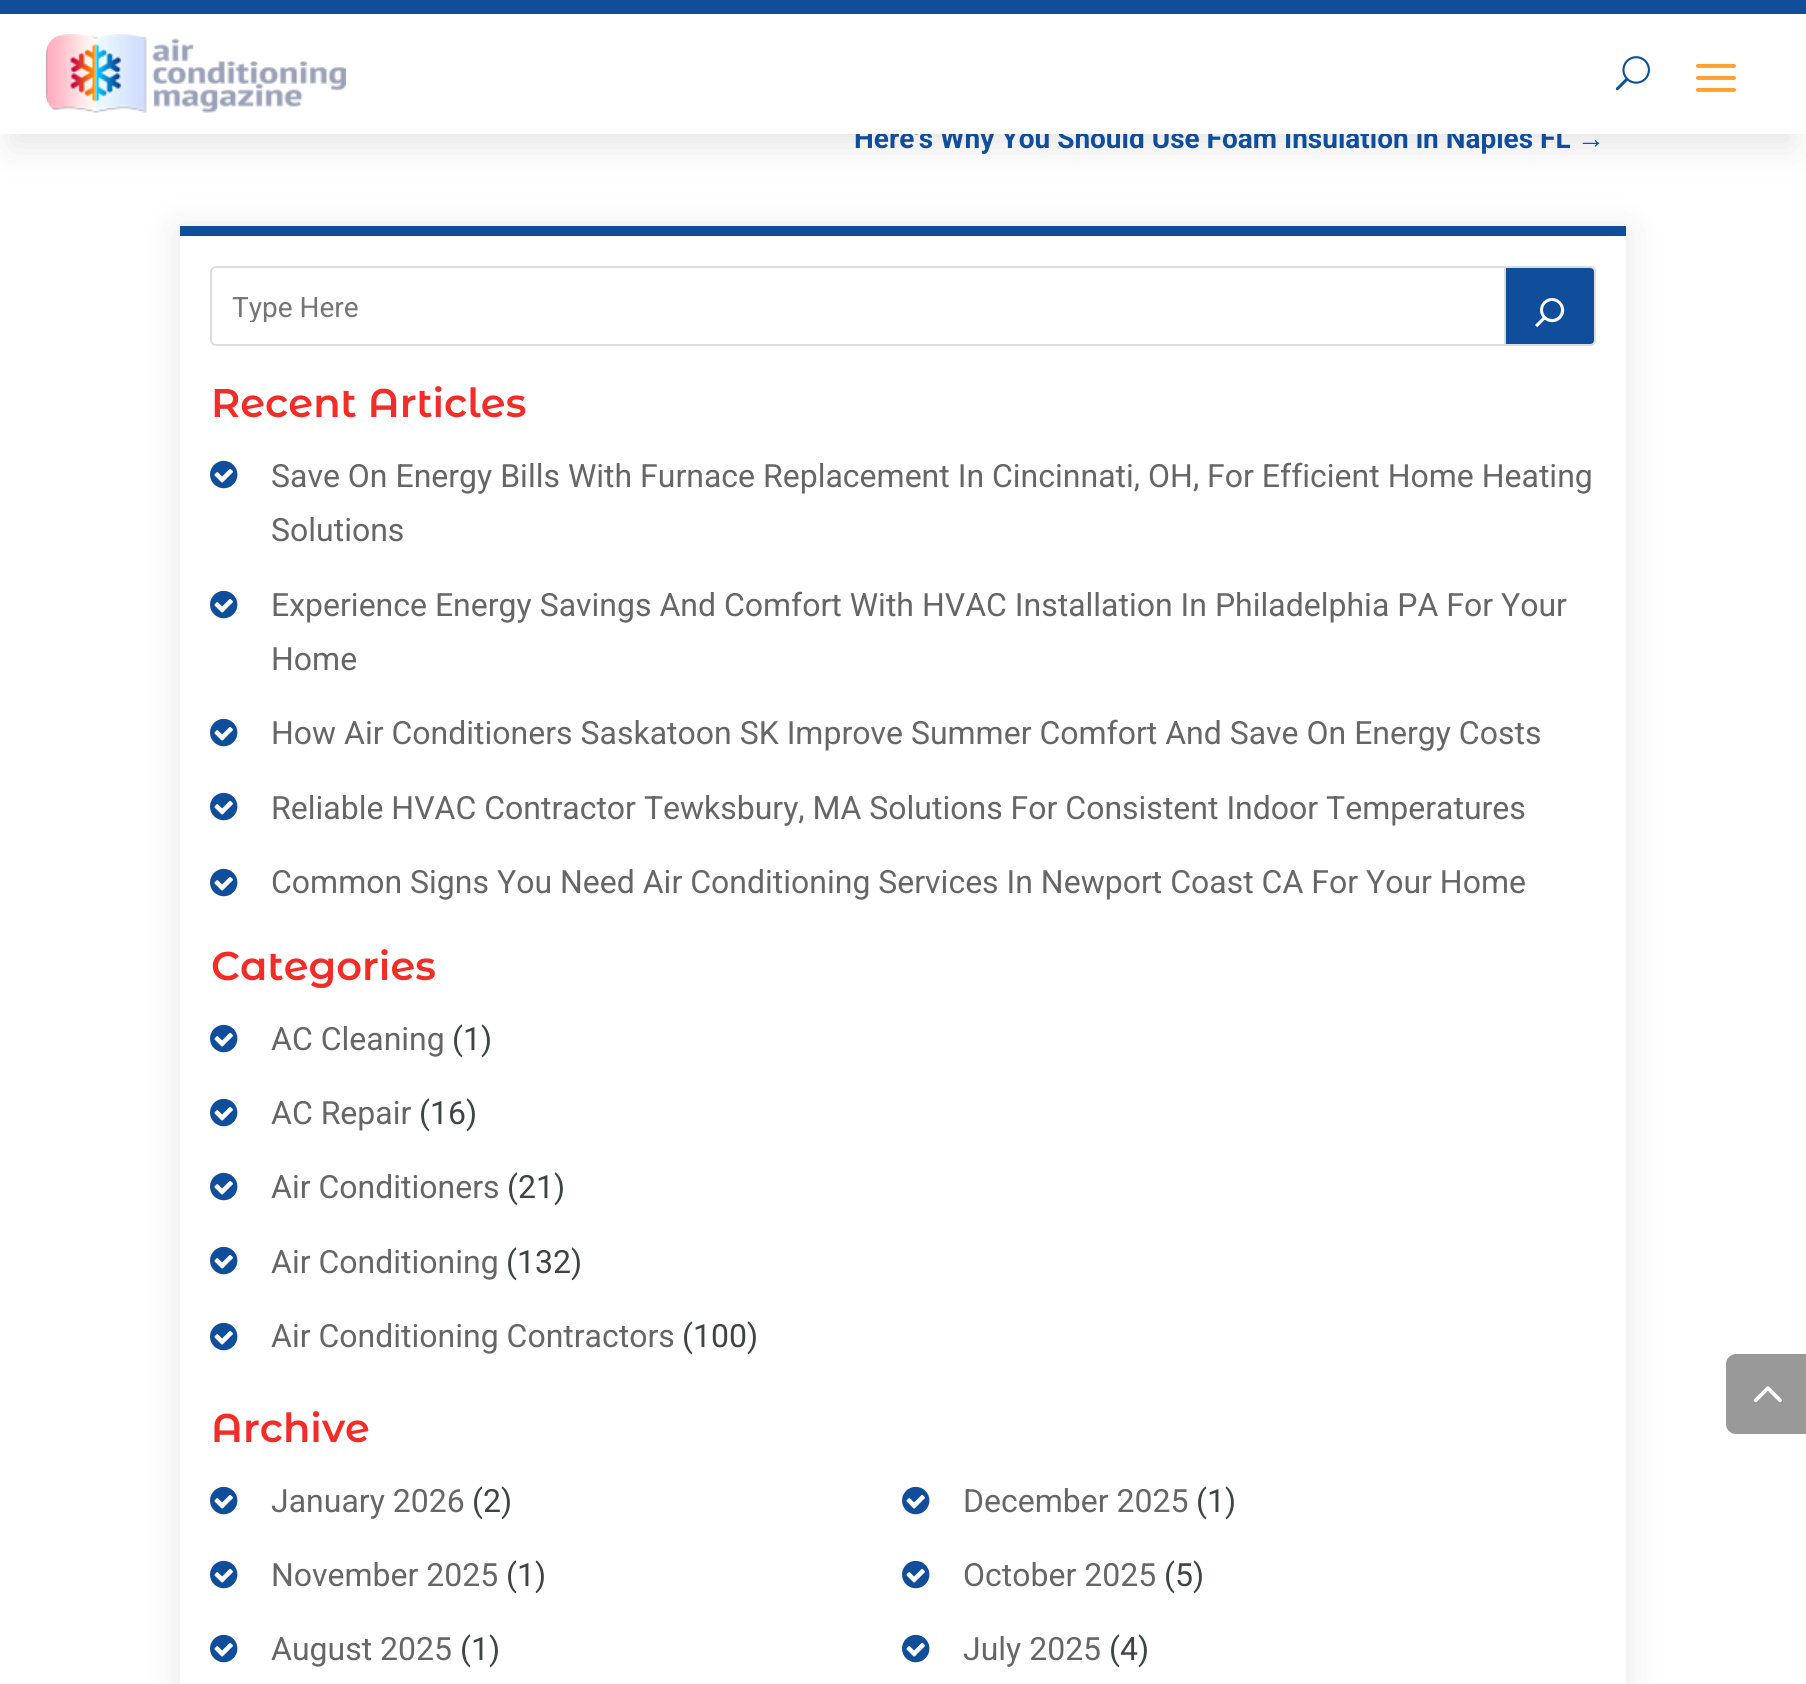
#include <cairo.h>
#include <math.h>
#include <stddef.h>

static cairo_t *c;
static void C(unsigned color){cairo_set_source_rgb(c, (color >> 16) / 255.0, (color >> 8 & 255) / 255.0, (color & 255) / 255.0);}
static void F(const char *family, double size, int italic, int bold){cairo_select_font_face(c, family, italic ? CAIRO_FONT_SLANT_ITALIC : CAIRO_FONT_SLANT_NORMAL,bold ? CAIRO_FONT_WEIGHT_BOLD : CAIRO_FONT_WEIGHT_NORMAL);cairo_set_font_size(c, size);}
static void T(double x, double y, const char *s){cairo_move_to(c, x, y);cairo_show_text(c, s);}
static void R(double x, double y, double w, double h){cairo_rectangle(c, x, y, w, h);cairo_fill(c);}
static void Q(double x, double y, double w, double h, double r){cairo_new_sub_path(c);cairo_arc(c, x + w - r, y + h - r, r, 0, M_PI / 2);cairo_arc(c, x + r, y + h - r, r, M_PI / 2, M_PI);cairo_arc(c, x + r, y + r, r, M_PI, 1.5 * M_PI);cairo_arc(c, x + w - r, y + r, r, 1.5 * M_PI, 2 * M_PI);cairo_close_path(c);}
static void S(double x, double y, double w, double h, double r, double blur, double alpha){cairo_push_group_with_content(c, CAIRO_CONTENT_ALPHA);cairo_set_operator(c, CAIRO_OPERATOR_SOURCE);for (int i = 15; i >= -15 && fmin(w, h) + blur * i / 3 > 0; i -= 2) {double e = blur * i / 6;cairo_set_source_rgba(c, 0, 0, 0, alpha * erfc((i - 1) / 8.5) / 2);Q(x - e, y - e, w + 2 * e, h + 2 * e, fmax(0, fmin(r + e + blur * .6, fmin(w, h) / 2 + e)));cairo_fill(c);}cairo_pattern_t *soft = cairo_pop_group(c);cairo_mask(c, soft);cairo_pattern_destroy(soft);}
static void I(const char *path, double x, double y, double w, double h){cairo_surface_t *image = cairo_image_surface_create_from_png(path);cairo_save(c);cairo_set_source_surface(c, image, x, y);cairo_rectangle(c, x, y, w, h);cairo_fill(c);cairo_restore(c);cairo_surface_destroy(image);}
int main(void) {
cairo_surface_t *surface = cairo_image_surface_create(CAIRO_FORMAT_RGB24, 1806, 1684);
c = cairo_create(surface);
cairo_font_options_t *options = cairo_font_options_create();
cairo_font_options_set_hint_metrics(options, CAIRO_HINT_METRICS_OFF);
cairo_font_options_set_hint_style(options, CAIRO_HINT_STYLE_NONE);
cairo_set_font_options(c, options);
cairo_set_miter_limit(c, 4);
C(0xffffff);
cairo_paint(c);
C(0x000000);
S(12,36,1782,110,0,18,.1);
F("Roboto",28,0,1);
C(0x104e9c);
T(854,148,"Here's Why You Should Use Foam Insulation in Naples FL");
C(0xffffff);
R(0,14,1806,120);
C(0x104e9c);
R(0,0,1806,14);
I("1.png",46,34,300,79);
I("2.png",1615,56,35,35);
I("3.png",1696,63,40,29);
F("Liberation Sans",28,0,1);
T(1577,148,"→");
cairo_save(c);
cairo_set_fill_rule(c,CAIRO_FILL_RULE_EVEN_ODD);
cairo_new_path(c);
cairo_move_to(c,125,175);
cairo_line_to(c,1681,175);
cairo_line_to(c,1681,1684);
cairo_line_to(c,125,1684);
cairo_close_path(c);
cairo_move_to(c,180,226);
cairo_line_to(c,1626,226);
cairo_line_to(c,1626,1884);
cairo_line_to(c,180,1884);
cairo_close_path(c);
cairo_clip(c);
C(0x000000);
S(180,230,1446,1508,0,18,.1);
cairo_restore(c);
R(180,226,1446,10);
Q(211,267,1384,78,5);
C(0xdddddd);
cairo_stroke(c);
cairo_save(c);
cairo_rectangle(c,232,290,1314,32);
cairo_clip(c);
F("Roboto",28,0,0);
C(0x757575);
T(232,317,"Type Here");
cairo_restore(c);
C(0x104e9c);
cairo_new_path(c);
cairo_move_to(c,1505,267);
cairo_line_to(c,1590,267);
cairo_curve_to(c,1593,267,1595,269,1595,272);
cairo_line_to(c,1595,340);
cairo_curve_to(c,1595,343,1593,345,1590,345);
cairo_line_to(c,1505,345);
cairo_close_path(c);
cairo_fill_preserve(c);
C(0xdddddd);
cairo_stroke(c);
I("4.png",1535,298,30,30);
F("Montserrat Alternates SemiBold",40,0,0);
C(0xf22c26);
T(211,417,"Recent Articles");
I("5.png",210,460,28,29);
F("Roboto",32,0,0);
C(0x666666);
T(271,487,"Save On Energy Bills With Furnace Replacement In Cincinnati, OH, For Efficient Home Heating");
T(271,541,"Solutions");
I("5.png",210,590,28,29);
T(271,616,"Experience Energy Savings And Comfort With HVAC Installation In Philadelphia PA For Your");
T(271,670,"Home");
I("5.png",210,718,28,29);
T(271,744,"How Air Conditioners Saskatoon SK Improve Summer Comfort And Save On Energy Costs");
I("5.png",210,792,28,29);
T(271,819,"Reliable HVAC Contractor Tewksbury, MA Solutions For Consistent Indoor Temperatures");
I("5.png",210,868,28,29);
T(271,893,"Common Signs You Need Air Conditioning Services In Newport Coast CA For Your Home");
F("Montserrat Alternates SemiBold",40,0,0);
C(0xf22c26);
T(211,980,"Categories");
I("5.png",210,1024,28,29);
F("Roboto",32,0,0);
C(0x666666);
T(271,1050,"AC Cleaning");
C(0x3d4443);
T(452,1050,"(1)");
I("5.png",210,1098,28,29);
C(0x666666);
T(271,1124,"AC Repair");
C(0x3d4443);
T(419,1124,"(16)");
I("5.png",210,1172,28,29);
C(0x666666);
T(271,1198,"Air Conditioners");
C(0x3d4443);
T(507,1198,"(21)");
I("5.png",210,1246,28,29);
C(0x666666);
T(271,1273,"Air Conditioning");
C(0x3d4443);
T(506,1273,"(132)");
I("5.png",210,1322,28,29);
C(0x666666);
T(271,1347,"Air Conditioning Contractors");
C(0x3d4443);
T(682,1347,"(100)");
F("Montserrat Alternates SemiBold",40,0,0);
C(0xf22c26);
T(211,1442,"Archive");
I("5.png",210,1486,28,29);
F("Roboto",32,0,0);
C(0x666666);
T(271,1512,"January 2026");
C(0x3d4443);
T(472,1512,"(2)");
I("5.png",902,1486,28,29);
C(0x666666);
T(963,1512,"December 2025");
C(0x3d4443);
T(1196,1512,"(1)");
I("5.png",210,1560,28,29);
C(0x666666);
T(271,1586,"November 2025");
C(0x3d4443);
T(506,1586,"(1)");
I("5.png",902,1560,28,29);
C(0x666666);
T(963,1586,"October 2025");
C(0x3d4443);
T(1164,1586,"(5)");
I("5.png",210,1634,28,29);
C(0x666666);
T(271,1660,"August 2025");
C(0x3d4443);
T(460,1660,"(1)");
I("5.png",902,1634,28,29);
C(0x666666);
T(963,1660,"July 2025");
C(0x3d4443);
T(1109,1660,"(4)");
C(0x999999);
cairo_new_path(c);
cairo_move_to(c,1736,1354);
cairo_line_to(c,1806,1354);
cairo_line_to(c,1806,1434);
cairo_line_to(c,1736,1434);
cairo_curve_to(c,1730.5,1434,1726,1429.5,1726,1424);
cairo_line_to(c,1726,1364);
cairo_curve_to(c,1726,1358.5,1730.5,1354,1736,1354);
cairo_close_path(c);
cairo_fill(c);
I("6.png",1753,1386,29,17);
cairo_surface_write_to_png(surface, "o.png");
cairo_font_options_destroy(options);
cairo_destroy(c);
cairo_surface_destroy(surface);
return 0;
}
